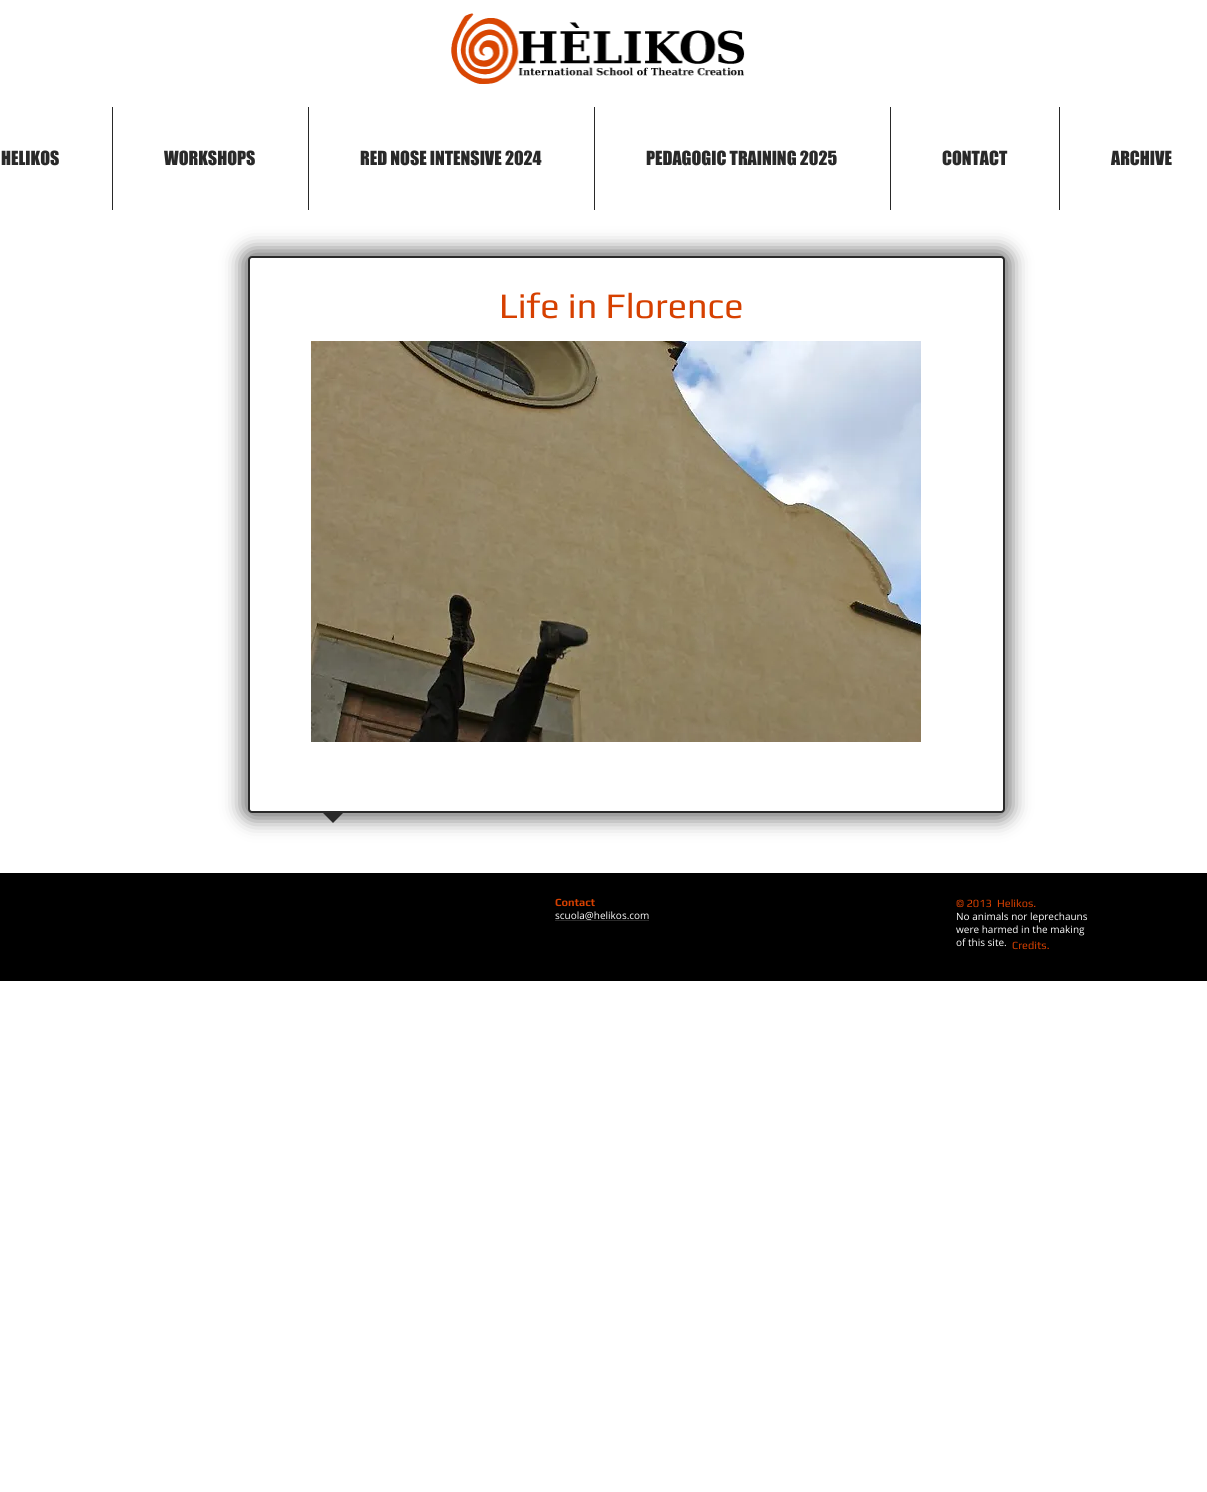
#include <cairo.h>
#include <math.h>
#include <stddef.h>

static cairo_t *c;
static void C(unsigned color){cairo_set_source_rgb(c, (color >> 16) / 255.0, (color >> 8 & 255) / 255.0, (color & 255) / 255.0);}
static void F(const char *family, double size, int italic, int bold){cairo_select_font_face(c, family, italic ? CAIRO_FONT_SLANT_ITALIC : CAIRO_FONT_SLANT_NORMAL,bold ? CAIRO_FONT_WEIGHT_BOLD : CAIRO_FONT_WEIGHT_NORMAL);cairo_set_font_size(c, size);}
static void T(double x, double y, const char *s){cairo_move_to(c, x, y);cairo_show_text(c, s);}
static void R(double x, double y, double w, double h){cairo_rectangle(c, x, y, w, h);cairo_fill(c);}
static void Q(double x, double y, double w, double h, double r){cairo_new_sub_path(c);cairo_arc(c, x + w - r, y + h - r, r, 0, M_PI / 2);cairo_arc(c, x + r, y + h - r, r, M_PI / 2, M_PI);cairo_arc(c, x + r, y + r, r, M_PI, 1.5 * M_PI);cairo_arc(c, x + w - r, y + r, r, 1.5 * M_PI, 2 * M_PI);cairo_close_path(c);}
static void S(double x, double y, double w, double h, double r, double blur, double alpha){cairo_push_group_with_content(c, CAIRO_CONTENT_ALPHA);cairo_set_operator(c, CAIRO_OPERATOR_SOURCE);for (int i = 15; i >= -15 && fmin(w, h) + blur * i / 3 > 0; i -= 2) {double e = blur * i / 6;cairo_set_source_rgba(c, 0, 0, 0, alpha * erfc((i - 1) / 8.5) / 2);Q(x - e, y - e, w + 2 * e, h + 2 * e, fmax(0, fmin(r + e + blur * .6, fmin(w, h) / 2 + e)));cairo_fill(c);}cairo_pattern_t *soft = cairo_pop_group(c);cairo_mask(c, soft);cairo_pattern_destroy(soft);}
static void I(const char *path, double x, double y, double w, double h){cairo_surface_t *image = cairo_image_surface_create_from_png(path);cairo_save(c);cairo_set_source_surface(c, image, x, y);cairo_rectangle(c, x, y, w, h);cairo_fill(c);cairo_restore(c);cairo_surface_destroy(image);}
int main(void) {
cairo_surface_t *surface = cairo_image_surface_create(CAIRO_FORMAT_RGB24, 1207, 1492);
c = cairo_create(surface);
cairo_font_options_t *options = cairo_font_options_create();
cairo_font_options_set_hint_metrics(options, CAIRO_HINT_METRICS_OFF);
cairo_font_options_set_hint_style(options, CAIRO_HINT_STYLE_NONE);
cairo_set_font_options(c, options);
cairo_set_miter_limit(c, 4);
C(0xffffff);
cairo_paint(c);
I("1.png",451,13,294,71);
F("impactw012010",18,0,0);
C(0x292929);
T(1,165,"HELIKOS");
R(112,107,1,103);
T(164,165,"WORKSHOPS");
R(308,107,1,103);
T(360,165,"RED NOSE INTENSIVE 2024");
R(594,107,1,103);
T(646,165,"PEDAGOGIC TRAINING 2025");
R(890,107,1,103);
T(942,165,"CONTACT");
R(1059,107,1,103);
T(1111,165,"ARCHIVE");
C(0x000000);
S(243,251,767,567,9,10,.6);
C(0xffffff);
Q(249,257,755,555,3);
cairo_fill_preserve(c);
C(0x292929);
cairo_stroke(c);
F("Play",36,0,0);
C(0xd64000);
T(499,318,"Life in Florence");
I("2.png",311,341,610,401);
C(0x292929);
cairo_new_path(c);
cairo_move_to(c,323,813);
cairo_line_to(c,343,813);
cairo_line_to(c,333,823);
cairo_close_path(c);
cairo_fill(c);
C(0x000000);
R(0,873,1207,108);
F("Play",11,0,1);
C(0xd64000);
T(555,906,"Contact");
F("Open Sans",10,0,0);
C(0xffffff);
T(555,919,"scuola@helikos.com");
C(0x292929);
R(555,920,94,1);
F("Play",11,0,0);
C(0xd64000);
T(956,907,"© 2013");
T(997,907,"Helikos.");
F("Open Sans",10,0,0);
C(0xffffff);
T(956,920,"No animals nor leprechauns");
T(956,933,"were harmed in the making");
T(956,946,"of this site.");
F("Play",11,0,0);
C(0xd64000);
T(1012,949,"Credits.");
cairo_surface_write_to_png(surface, "o.png");
cairo_font_options_destroy(options);
cairo_destroy(c);
cairo_surface_destroy(surface);
return 0;
}
